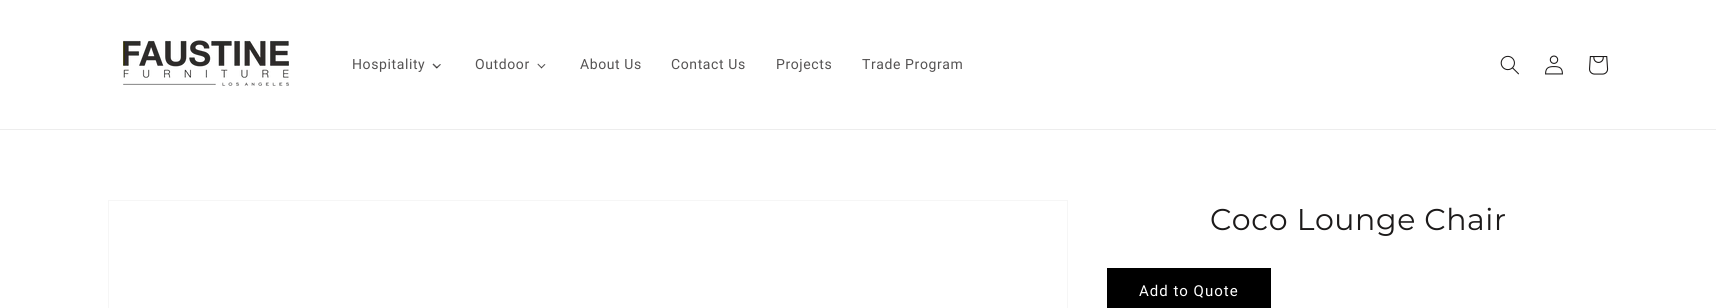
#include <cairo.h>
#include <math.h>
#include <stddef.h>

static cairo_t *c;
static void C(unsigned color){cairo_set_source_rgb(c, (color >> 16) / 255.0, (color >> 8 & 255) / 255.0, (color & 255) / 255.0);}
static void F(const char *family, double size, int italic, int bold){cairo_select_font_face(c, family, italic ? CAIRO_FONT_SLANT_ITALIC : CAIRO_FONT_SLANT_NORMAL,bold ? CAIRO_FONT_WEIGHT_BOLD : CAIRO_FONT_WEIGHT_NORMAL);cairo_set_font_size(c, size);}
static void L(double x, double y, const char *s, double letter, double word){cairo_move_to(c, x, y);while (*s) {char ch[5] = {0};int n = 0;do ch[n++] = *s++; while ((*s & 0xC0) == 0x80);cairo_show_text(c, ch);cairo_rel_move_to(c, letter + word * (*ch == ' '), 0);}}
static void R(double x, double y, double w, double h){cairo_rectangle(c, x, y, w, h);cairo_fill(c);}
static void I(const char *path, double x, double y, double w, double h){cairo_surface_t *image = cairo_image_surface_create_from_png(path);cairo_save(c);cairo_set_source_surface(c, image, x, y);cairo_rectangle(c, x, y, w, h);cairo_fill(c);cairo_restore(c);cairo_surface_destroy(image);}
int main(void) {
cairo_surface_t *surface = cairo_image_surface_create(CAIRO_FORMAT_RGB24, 1716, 308);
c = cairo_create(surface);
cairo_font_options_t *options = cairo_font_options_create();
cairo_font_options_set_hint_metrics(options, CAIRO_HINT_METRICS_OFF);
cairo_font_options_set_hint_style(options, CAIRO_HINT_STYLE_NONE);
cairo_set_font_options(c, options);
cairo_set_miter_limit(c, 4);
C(0xffffff);
cairo_paint(c);
C(0xededed);
R(0,129,1716,1);
I("1.png",123,40,166,46);
F("Roboto",14,0,0);
C(0x555353);
L(352,69,"Hospitality",.6,0);
cairo_new_path(c);
cairo_move_to(c,440,64);
cairo_line_to(c,441,64.5);
cairo_line_to(c,437,68.5);
cairo_line_to(c,436,67.5);
cairo_close_path(c);
cairo_fill(c);
cairo_set_source_rgba(c,0.11,0.102,0.102,0.75);
cairo_new_path(c);
cairo_move_to(c,433.5,63.5);
cairo_line_to(c,437.5,67.5);
cairo_line_to(c,436.5,68.5);
cairo_line_to(c,432.5,64.5);
cairo_close_path(c);
cairo_fill(c);
C(0x555353);
L(475,69,"Outdoor",.6,0);
cairo_new_path(c);
cairo_move_to(c,544.5,64);
cairo_line_to(c,545.5,64.5);
cairo_line_to(c,541.5,68.5);
cairo_line_to(c,541,67.5);
cairo_close_path(c);
cairo_fill(c);
cairo_set_source_rgba(c,0.11,0.102,0.102,0.75);
cairo_new_path(c);
cairo_move_to(c,538,63.5);
cairo_line_to(c,542,67.5);
cairo_line_to(c,541.5,68.5);
cairo_line_to(c,537.5,64.5);
cairo_close_path(c);
cairo_fill(c);
C(0x555353);
L(580,69,"About Us",.6,0);
L(671,69,"Contact Us",.6,0);
L(776,69,"Projects",.6,0);
L(862,69,"Trade Program",.6,0);
I("2.png",1500,55,19,20);
I("3.png",1545,55,18,20);
I("4.png",1589,56,20,19);
cairo_rectangle(c,108.5,200.5,959,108);
C(0xf6f6f6);
cairo_set_line_width(c,1);
cairo_stroke(c);
F("Montserrat",30,0,0);
C(0x1c1a1a);
L(1210,230,"Coco Lounge Chair",.6,0);
cairo_rectangle(c,1107.5,268.5,163,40);
C(0x000000);
cairo_stroke(c);
R(1108,269,162,39);
F("Roboto",15,0,0);
C(0xffffff);
L(1139,296,"Add to Quote",1,0);
cairo_surface_write_to_png(surface, "o.png");
cairo_font_options_destroy(options);
cairo_destroy(c);
cairo_surface_destroy(surface);
return 0;
}
